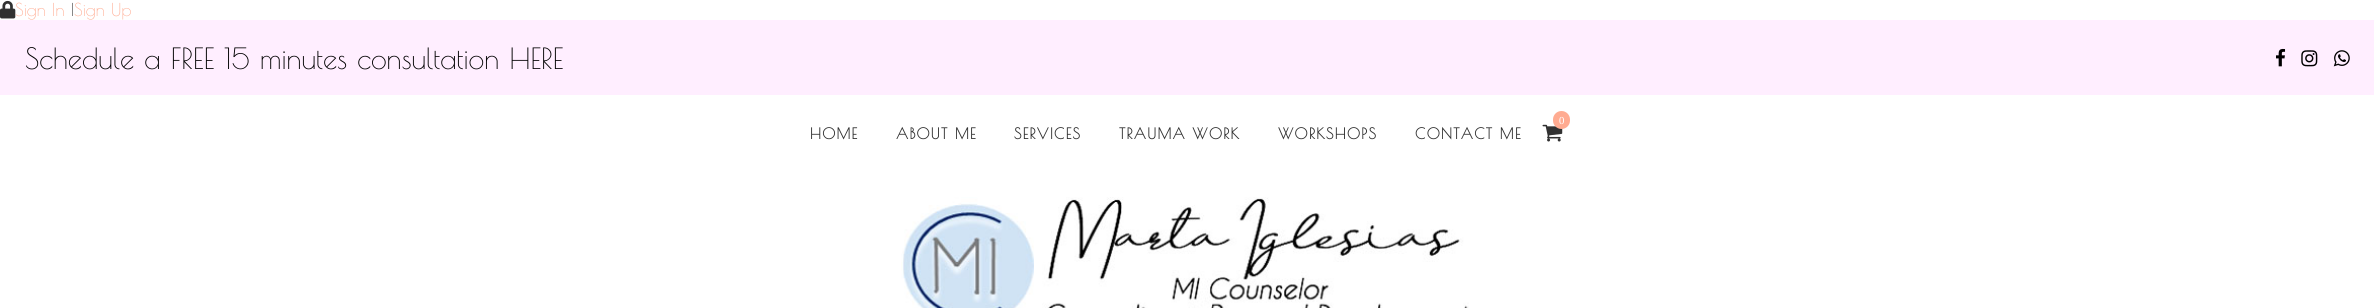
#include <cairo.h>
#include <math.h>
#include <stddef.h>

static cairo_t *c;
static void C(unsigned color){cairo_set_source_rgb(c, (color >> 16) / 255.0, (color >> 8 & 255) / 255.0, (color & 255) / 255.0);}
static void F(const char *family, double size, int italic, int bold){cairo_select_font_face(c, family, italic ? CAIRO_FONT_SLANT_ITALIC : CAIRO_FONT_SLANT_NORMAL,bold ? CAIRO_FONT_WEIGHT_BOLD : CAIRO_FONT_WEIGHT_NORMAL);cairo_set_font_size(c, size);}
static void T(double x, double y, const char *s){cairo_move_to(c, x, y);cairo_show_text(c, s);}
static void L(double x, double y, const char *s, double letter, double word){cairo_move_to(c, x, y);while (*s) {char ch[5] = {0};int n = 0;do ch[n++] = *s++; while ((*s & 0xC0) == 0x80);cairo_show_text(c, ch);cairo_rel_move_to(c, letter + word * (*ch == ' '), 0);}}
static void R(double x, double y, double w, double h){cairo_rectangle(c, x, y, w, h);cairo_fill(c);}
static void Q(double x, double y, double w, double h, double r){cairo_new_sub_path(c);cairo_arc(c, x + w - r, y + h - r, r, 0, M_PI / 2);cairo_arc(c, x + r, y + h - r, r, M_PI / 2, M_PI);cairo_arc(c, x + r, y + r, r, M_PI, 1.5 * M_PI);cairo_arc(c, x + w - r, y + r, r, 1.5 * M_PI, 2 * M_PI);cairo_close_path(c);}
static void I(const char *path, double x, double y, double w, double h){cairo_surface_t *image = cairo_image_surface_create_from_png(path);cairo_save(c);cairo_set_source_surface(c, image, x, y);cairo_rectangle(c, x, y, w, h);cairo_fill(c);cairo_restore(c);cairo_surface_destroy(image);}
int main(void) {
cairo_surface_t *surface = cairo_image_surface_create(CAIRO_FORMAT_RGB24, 2374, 308);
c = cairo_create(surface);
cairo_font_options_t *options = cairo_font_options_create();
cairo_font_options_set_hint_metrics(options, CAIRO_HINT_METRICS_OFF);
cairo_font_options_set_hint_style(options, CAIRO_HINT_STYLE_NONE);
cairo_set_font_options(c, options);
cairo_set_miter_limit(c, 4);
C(0xffffff);
cairo_paint(c);
I("1.png",0,0,16,19);
F("Poiret One",17.5,0,0);
C(0xffab91);
T(15,16,"Sign In");
C(0x313131);
T(71,16,"|");
C(0xffab91);
T(74,16,"Sign Up");
C(0xffeeff);
R(0,20,2374,75);
F("Poiret One",28.75,0,0);
C(0x000000);
T(25,69,"Schedule a FREE 15 minutes consultation HERE");
I("2.png",2276,48,10,19);
I("3.png",2301,50,17,17);
I("4.png",2333,50,17,17);
I("5.png",1542,124,21,18);
C(0xffab91);
Q(1553,111,17,18,8.5);
cairo_fill(c);
F("PT Serif",10,0,0);
C(0xffffff);
T(1559,124,"0");
F("Poiret One",15,0,1);
C(0x313131);
L(810,139,"HOME",1.25,0);
L(896,139,"ABOUT ME",1.25,0);
L(1014,139,"SERVICES",1.25,0);
L(1119,139,"TRAUMA WORK",1.25,0);
L(1278,139,"WORKSHOPS",1.25,0);
L(1415,139,"CONTACT ME",1.25,0);
I("6.png",901,197,568,111);
cairo_surface_write_to_png(surface, "o.png");
cairo_font_options_destroy(options);
cairo_destroy(c);
cairo_surface_destroy(surface);
return 0;
}
